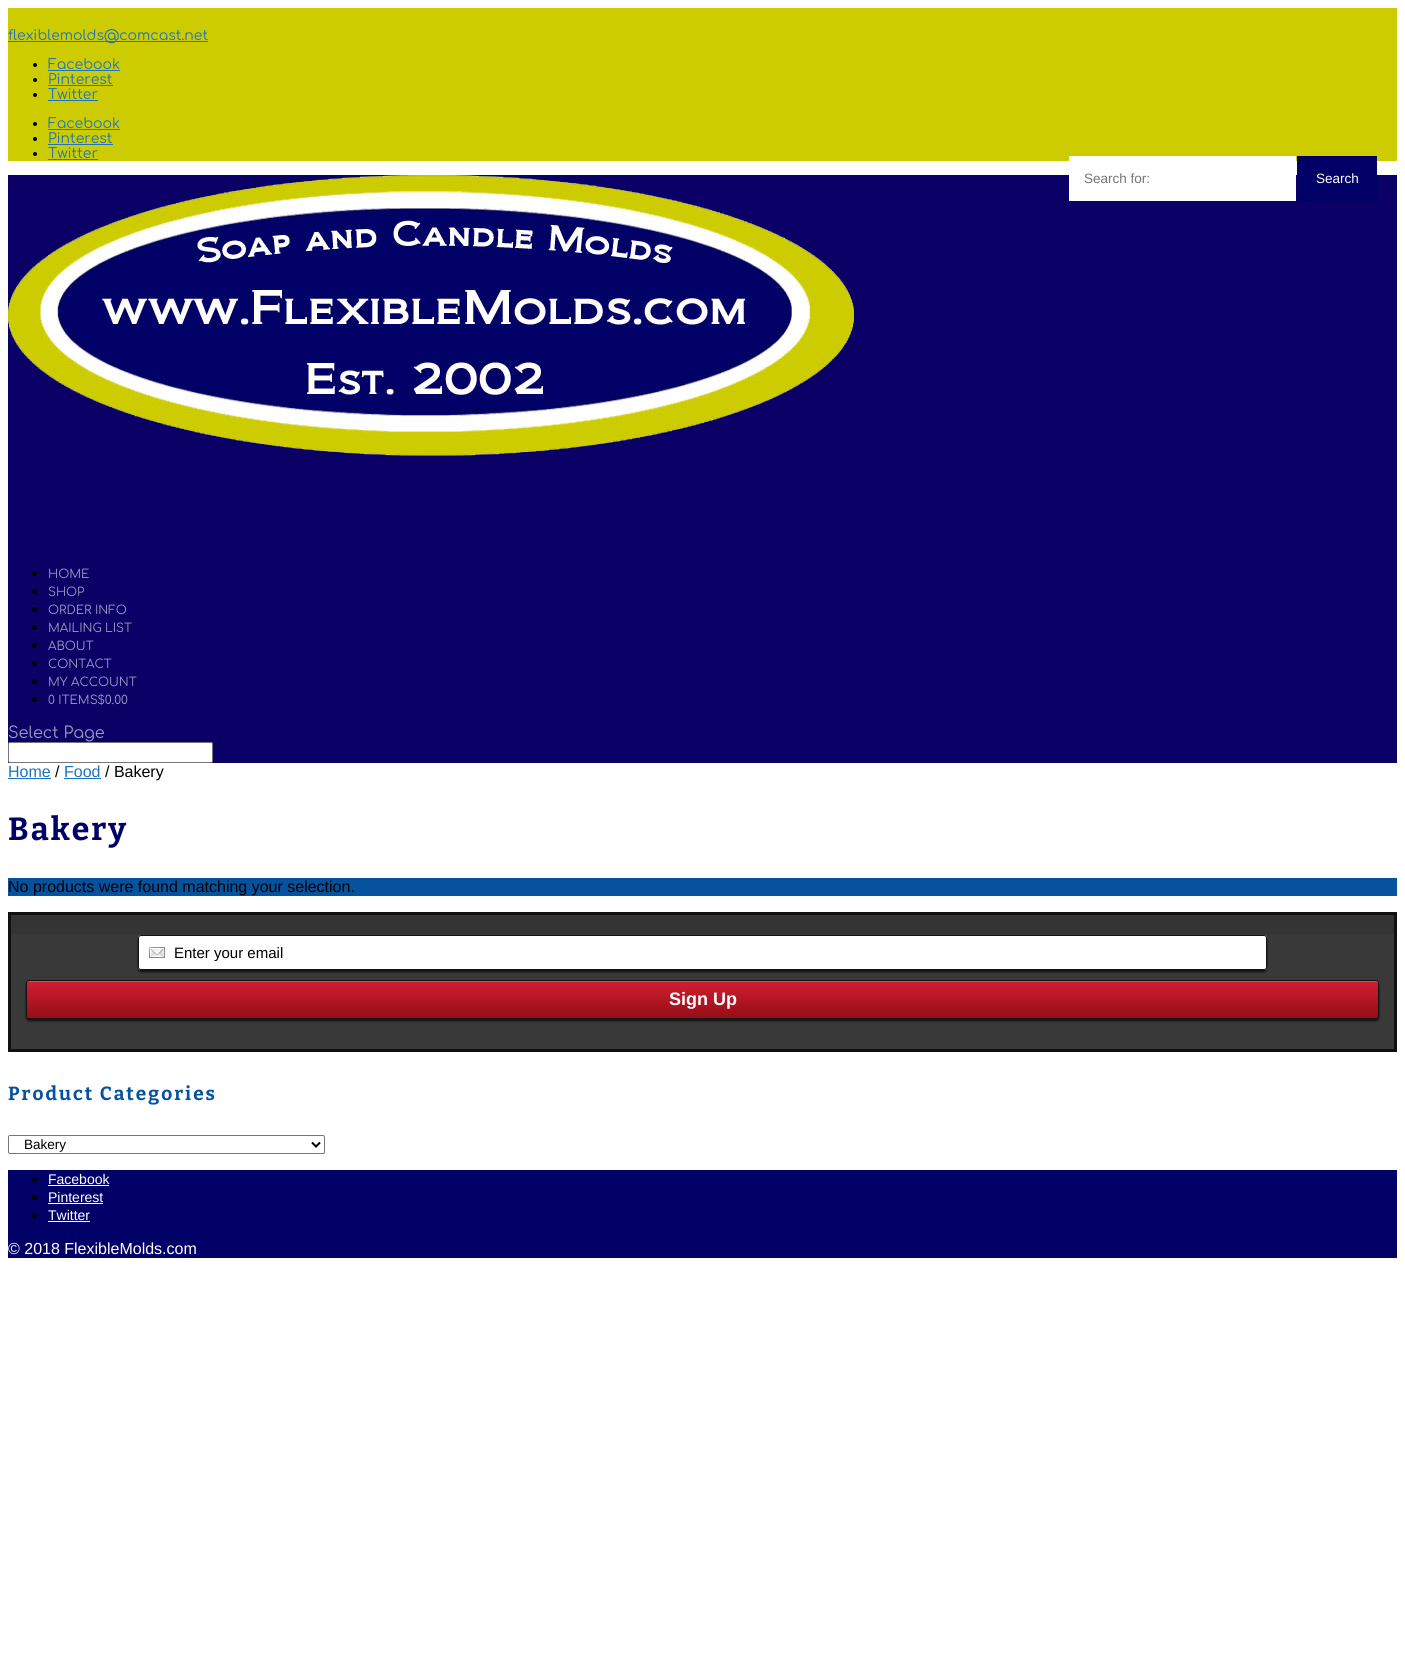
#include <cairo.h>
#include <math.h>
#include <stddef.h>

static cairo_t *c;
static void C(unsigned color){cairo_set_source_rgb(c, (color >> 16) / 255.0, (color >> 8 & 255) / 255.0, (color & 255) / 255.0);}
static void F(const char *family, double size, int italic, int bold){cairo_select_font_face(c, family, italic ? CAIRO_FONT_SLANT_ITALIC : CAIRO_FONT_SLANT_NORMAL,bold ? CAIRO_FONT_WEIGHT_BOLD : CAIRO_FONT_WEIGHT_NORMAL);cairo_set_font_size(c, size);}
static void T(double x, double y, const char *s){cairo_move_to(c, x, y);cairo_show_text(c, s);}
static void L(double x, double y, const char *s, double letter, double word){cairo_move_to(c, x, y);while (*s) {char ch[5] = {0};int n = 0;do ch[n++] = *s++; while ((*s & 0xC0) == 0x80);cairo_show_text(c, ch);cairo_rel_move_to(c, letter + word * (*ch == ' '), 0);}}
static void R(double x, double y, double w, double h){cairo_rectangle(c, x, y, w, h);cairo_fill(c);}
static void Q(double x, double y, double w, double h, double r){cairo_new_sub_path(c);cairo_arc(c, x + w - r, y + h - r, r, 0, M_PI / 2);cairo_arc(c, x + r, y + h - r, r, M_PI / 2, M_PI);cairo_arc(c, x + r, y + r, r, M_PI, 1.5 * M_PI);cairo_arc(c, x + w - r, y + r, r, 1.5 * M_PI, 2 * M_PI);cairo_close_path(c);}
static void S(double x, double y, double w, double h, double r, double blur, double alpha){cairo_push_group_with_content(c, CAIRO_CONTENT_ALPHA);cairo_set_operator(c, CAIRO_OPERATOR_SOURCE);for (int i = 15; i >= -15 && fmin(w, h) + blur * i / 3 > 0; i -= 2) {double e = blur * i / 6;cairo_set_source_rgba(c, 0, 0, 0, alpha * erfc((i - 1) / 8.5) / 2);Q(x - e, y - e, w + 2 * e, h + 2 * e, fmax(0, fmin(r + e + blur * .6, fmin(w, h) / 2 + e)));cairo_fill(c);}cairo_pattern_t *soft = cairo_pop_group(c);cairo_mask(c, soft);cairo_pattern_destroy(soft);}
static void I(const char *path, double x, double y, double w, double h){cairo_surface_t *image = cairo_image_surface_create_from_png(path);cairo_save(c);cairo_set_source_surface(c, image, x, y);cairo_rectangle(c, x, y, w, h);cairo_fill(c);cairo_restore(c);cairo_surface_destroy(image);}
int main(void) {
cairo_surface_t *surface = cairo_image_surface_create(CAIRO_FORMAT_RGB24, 1405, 1659);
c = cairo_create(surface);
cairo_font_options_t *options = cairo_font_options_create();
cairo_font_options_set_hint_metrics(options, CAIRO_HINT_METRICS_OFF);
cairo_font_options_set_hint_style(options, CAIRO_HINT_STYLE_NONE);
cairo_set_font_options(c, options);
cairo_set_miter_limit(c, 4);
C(0xffffff);
cairo_paint(c);
C(0xcccc00);
R(8,8,1389,153);
C(0x1e73be);
R(8,41,200,1);
F("Comfortaa",14,0,0);
T(8,40,"flexiblemolds@comcast.net");
C(0x000000);
cairo_new_path(c);
cairo_arc(c,35,65,2,0,2 * M_PI);
cairo_fill(c);
C(0x1e73be);
T(48,69,"Facebook");
R(48,70,72,1);
C(0x000000);
cairo_new_path(c);
cairo_arc(c,35,80,2,0,2 * M_PI);
cairo_fill(c);
C(0x1e73be);
T(48,84,"Pinterest");
R(48,85,65,1);
C(0x000000);
cairo_new_path(c);
cairo_arc(c,35,95,2,0,2 * M_PI);
cairo_fill(c);
C(0x1e73be);
T(48,99,"Twitter");
R(48,100,50,1);
C(0x000000);
cairo_new_path(c);
cairo_arc(c,35,124,2,0,2 * M_PI);
cairo_fill(c);
C(0x1e73be);
T(48,128,"Facebook");
R(48,129,72,1);
C(0x000000);
cairo_new_path(c);
cairo_arc(c,35,139,2,0,2 * M_PI);
cairo_fill(c);
C(0x1e73be);
T(48,143,"Pinterest");
R(48,144,65,1);
C(0x000000);
cairo_new_path(c);
cairo_arc(c,35,154,2,0,2 * M_PI);
cairo_fill(c);
C(0x1e73be);
T(48,158,"Twitter");
R(48,159,50,1);
C(0x0a0066);
R(8,175,1389,588);
C(0xffffff);
R(1069,156,227,45);
F("Arimo",13.5,0,0);
C(0x757575);
T(1084,183,"Search for:");
C(0x010066);
R(1297,156,80,45);
C(0xffffff);
T(1316,183,"Search");
I("1.png",8,175,846,281);
C(0x000000);
cairo_arc(c,34.5,573.5,2.5,0,2 * M_PI);
cairo_fill(c);
F("Comfortaa",12,0,0);
C(0x9d99c2);
T(48,578,"HOME");
C(0x000000);
cairo_new_path(c);
cairo_arc(c,34.5,591.5,2.5,0,2 * M_PI);
cairo_fill(c);
C(0x9d99c2);
T(48,596,"SHOP");
C(0x000000);
cairo_new_path(c);
cairo_arc(c,34.5,609.5,2.5,0,2 * M_PI);
cairo_fill(c);
C(0x9d99c2);
T(48,614,"ORDER INFO");
C(0x000000);
cairo_new_path(c);
cairo_arc(c,34.5,627.5,2.5,0,2 * M_PI);
cairo_fill(c);
C(0x9d99c2);
T(48,632,"MAILING LIST");
C(0x000000);
cairo_new_path(c);
cairo_arc(c,34.5,645.5,2.5,0,2 * M_PI);
cairo_fill(c);
C(0x9d99c2);
T(48,650,"ABOUT");
C(0x000000);
cairo_new_path(c);
cairo_arc(c,34.5,663.5,2.5,0,2 * M_PI);
cairo_fill(c);
C(0x9d99c2);
T(48,668,"CONTACT");
C(0x000000);
cairo_new_path(c);
cairo_arc(c,34.5,681.5,2.5,0,2 * M_PI);
cairo_fill(c);
C(0x9d99c2);
T(48,686,"MY ACCOUNT");
C(0x000000);
cairo_new_path(c);
cairo_arc(c,34.5,699.5,2.5,0,2 * M_PI);
cairo_fill(c);
C(0x9d99c2);
T(48,704,"0 ITEMS$0.00");
F("Comfortaa",16,0,0);
T(8,738,"Select Page");
C(0xffffff);
Q(8.5,742.5,204,20,1.5);
cairo_fill_preserve(c);
C(0x767676);
cairo_set_line_width(c,1);
cairo_stroke(c);
F("Arimo",16,0,0);
C(0x1e73be);
T(8,777,"Home");
R(8,778,43,1);
C(0x000000);
T(55,777,"/");
C(0x1e73be);
T(64,777,"Food");
R(64,778,37,1);
C(0x000000);
T(105,777,"/ Bakery");
F("Bitter",32,0,1);
C(0x010066);
L(8,840,"Bakery",2,0);
C(0x06529e);
R(8,878,1389,18);
F("Arimo",16,0,0);
C(0x000000);
T(8,892,"No products were found matching your selection.");
C(0x393939);
R(11,934,1383,115);
C(0x343434);
R(11,915,1383,19);
cairo_rectangle(c,9.5,913.5,1386,137);
C(0x111111);
cairo_set_line_width(c,3);
cairo_stroke(c);
C(0x111111);
S(138,937,1129,35,3,1,1);
C(0xffffff);
Q(138,935,1129,35,3);
cairo_fill(c);
I("2.png",149,947,16,11);
Q(138.5,935.5,1128,34,2.5);
C(0x111111);
cairo_set_line_width(c,1);
cairo_stroke(c);
F("Arimo",15,0,0);
C(0x000000);
T(174,958,"Enter your email");
C(0x111111);
S(26,982,1353,39,3,1,1);
I("3.png",26,981,1353,38);
Q(26.5,980.5,1352,38,2.5);
C(0x111111);
cairo_stroke(c);
F("Arimo",18,0,1);
C(0xffffff);
T(669,1005,"Sign Up");
F("Bitter",19,0,1);
C(0x06529e);
L(8,1100,"Product Categories",2,0);
Q(8.5,1135.5,316,18,1.5);
C(0x767676);
cairo_stroke(c);
cairo_new_path(c);
cairo_move_to(c,312,1142.5);
cairo_line_to(c,316,1146.5);
cairo_line_to(c,320,1142.5);
C(0x000000);
cairo_set_line_width(c,2);
cairo_stroke(c);
F("Arimo",13.5,0,0);
T(24,1149,"Bakery");
C(0x010066);
R(8,1170,1389,88);
C(0x000000);
cairo_new_path(c);
cairo_arc(c,34.5,1179.5,2.5,0,2 * M_PI);
cairo_fill(c);
F("Arimo",14,0,0);
C(0xffffff);
T(48,1184,"Facebook");
R(48,1185,61,1);
C(0x000000);
cairo_new_path(c);
cairo_arc(c,34.5,1197.5,2.5,0,2 * M_PI);
cairo_fill(c);
C(0xffffff);
T(48,1202,"Pinterest");
R(48,1203,55,1);
C(0x000000);
cairo_new_path(c);
cairo_arc(c,34.5,1215.5,2.5,0,2 * M_PI);
cairo_fill(c);
C(0xffffff);
T(48,1220,"Twitter");
R(48,1221,42,1);
F("Arimo",16,0,0);
T(8,1254,"© 2018 FlexibleMolds.com");
cairo_surface_write_to_png(surface, "o.png");
cairo_font_options_destroy(options);
cairo_destroy(c);
cairo_surface_destroy(surface);
return 0;
}
